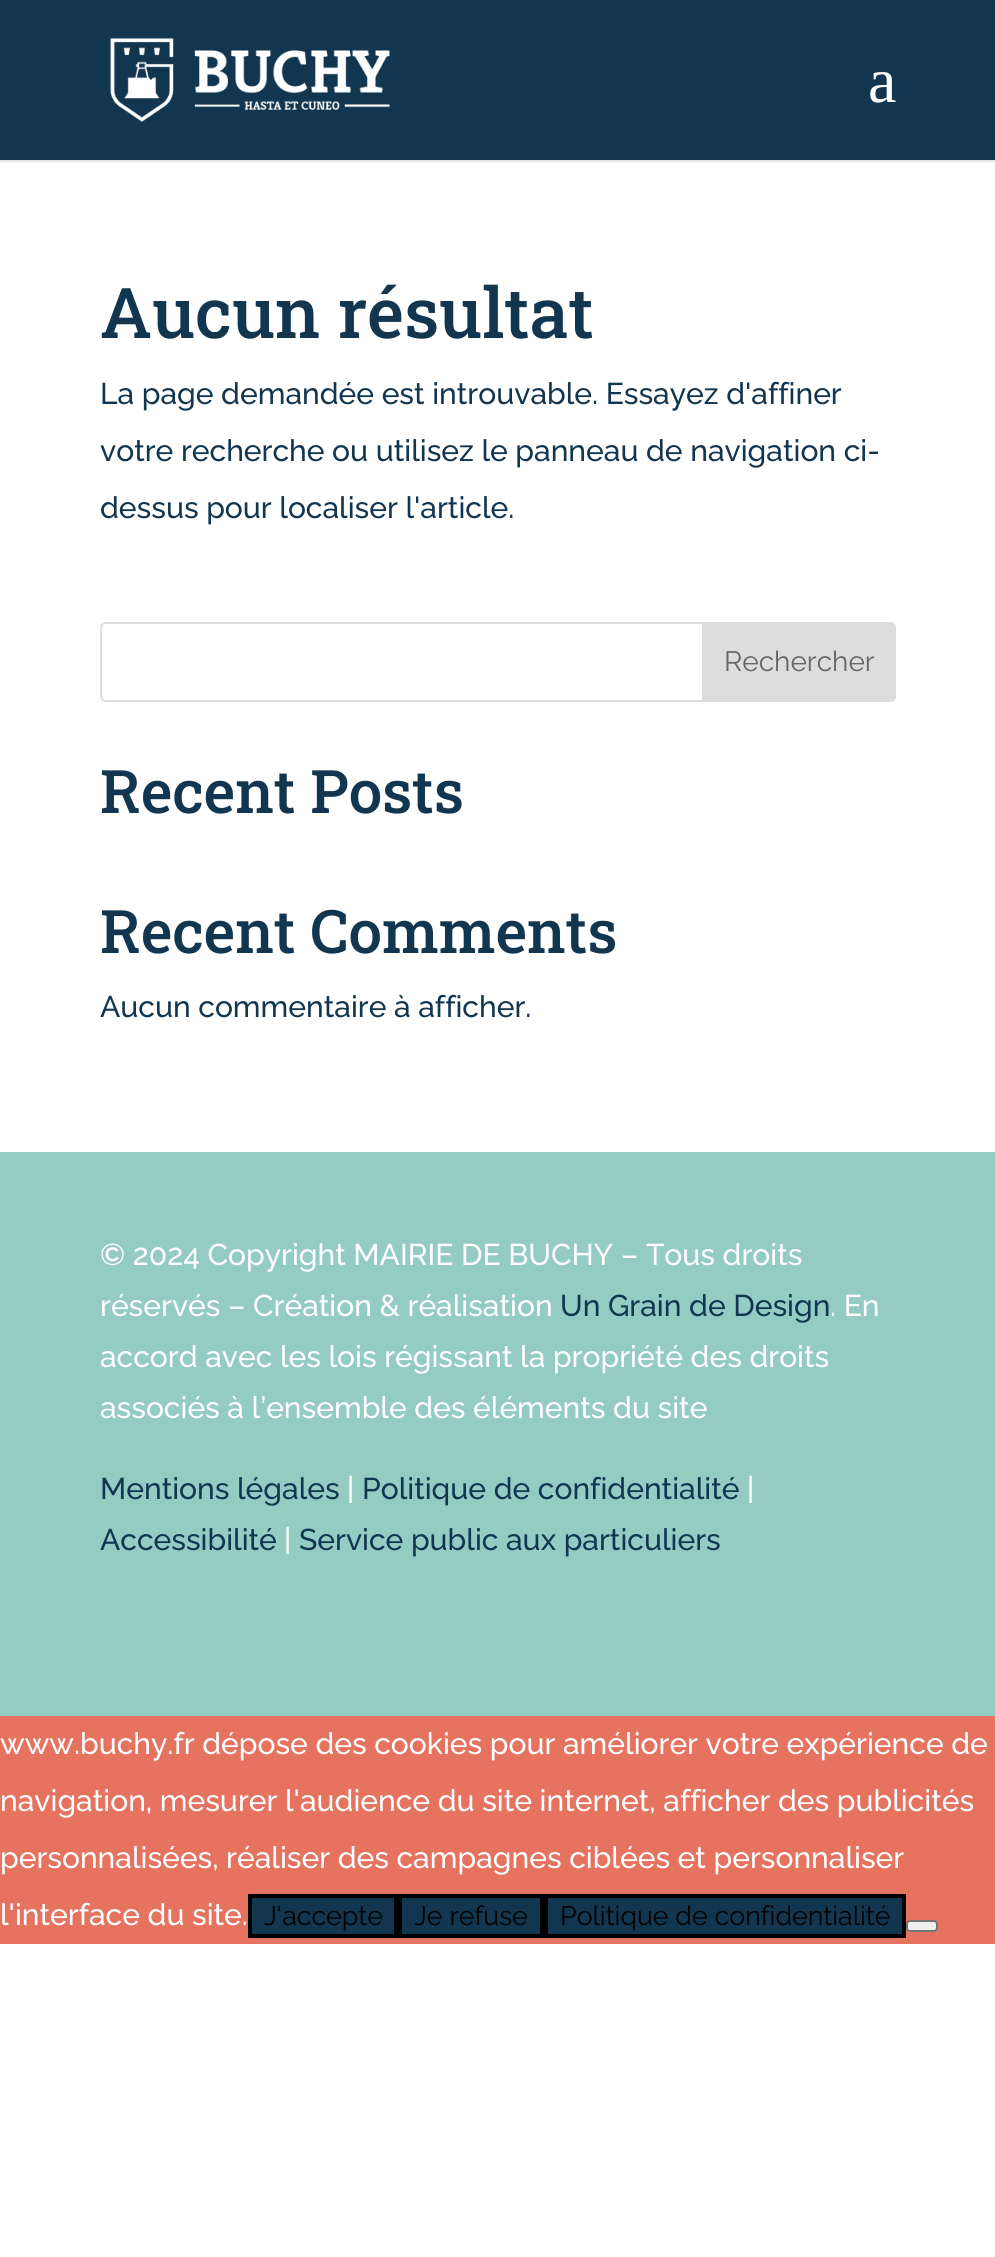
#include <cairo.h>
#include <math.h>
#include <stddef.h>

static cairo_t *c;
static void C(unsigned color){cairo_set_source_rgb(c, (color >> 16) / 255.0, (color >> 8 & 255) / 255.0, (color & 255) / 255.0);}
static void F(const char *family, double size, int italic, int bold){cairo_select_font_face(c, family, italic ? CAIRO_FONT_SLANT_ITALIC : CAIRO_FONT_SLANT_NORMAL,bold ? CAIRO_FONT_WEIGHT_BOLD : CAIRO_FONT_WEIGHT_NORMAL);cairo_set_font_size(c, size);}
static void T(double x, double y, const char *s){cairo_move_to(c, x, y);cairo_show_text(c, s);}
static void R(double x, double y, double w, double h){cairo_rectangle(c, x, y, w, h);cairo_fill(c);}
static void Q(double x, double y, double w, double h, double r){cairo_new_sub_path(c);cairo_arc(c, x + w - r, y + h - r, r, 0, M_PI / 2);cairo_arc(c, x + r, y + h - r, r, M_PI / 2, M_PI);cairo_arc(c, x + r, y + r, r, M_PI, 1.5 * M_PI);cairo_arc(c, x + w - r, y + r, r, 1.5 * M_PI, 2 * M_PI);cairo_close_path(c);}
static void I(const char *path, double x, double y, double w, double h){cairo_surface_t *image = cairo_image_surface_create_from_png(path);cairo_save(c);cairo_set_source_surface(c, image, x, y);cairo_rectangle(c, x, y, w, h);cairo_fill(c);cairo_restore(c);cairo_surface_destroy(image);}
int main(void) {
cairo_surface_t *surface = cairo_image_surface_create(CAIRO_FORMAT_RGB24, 995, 2257);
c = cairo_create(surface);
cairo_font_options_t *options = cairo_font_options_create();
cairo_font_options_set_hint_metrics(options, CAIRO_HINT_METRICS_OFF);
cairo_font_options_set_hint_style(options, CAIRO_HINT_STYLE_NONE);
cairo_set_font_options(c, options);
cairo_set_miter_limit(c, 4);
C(0xffffff);
cairo_paint(c);
C(0xe6e6e6);
R(0,160,995,2);
C(0x123650);
R(0,0,995,160);
I("1.png",110,38,280,84);
F("Liberation Serif",64,0,0);
C(0xffffff);
T(868,102,"a");
F("Roboto Slab Medium",70,0,0);
C(0x123650);
T(100,338,"Aucun résultat");
F("Raleway Medium",30,0,0);
T(100,404,"La page demandée est introuvable. Essayez d'affiner");
T(100,461,"votre recherche ou utilisez le panneau de navigation ci-");
T(100,518,"dessus pour localiser l'article.");
Q(101,623,794,78,5);
C(0xdddddd);
cairo_stroke(c);
cairo_new_path(c);
cairo_move_to(c,703,623);
cairo_line_to(c,890,623);
cairo_curve_to(c,893,623,895,625,895,628);
cairo_line_to(c,895,696);
cairo_curve_to(c,895,699,893,701,890,701);
cairo_line_to(c,703,701);
cairo_close_path(c);
cairo_fill_preserve(c);
cairo_stroke(c);
F("Raleway",28,0,0);
C(0x666666);
T(724,671,"Rechercher");
F("Roboto Slab Medium",60,0,0);
C(0x123650);
T(100,813,"Recent Posts");
T(100,953,"Recent Comments");
F("Raleway Medium",30,0,0);
T(100,1017,"Aucun commentaire à afficher.");
C(0x94cbc3);
R(0,1152,995,564);
C(0xffffff);
T(100,1265,"© 2024 Copyright MAIRIE DE BUCHY – Tous droits");
T(100,1316,"réservés – Création & réalisation");
C(0x123650);
T(560,1316,"Un Grain de Design");
C(0xffffff);
T(830,1316,". En");
T(100,1367,"accord avec les lois régissant la propriété des droits");
T(100,1418,"associés à l’ensemble des éléments du site");
C(0x123650);
T(100,1499,"Mentions légales");
C(0xffffff);
T(347,1499,"|");
C(0x123650);
T(362,1499,"Politique de confidentialité");
C(0xffffff);
T(747,1499,"|");
C(0x123650);
T(100,1550,"Accessibilité");
C(0xffffff);
T(284,1550,"|");
C(0x123650);
T(299,1550,"Service public aux particuliers");
C(0xe57360);
R(0,1716,995,228);
C(0xffffff);
T(0,1754,"www.buchy.fr dépose des cookies pour améliorer votre expérience de");
T(0,1811,"navigation, mesurer l'audience du site internet, afficher des publicités");
T(0,1868,"personnalisées, réaliser des campagnes ciblées et personnaliser");
T(0,1925,"l'interface du site.");
C(0x123650);
cairo_rectangle(c,250,1896,146,40);
cairo_fill_preserve(c);
C(0x000000);
cairo_set_line_width(c,4);
cairo_stroke(c);
F("Raleway",26.75,0,0);
T(264,1925,"J'accepte");
C(0x123650);
cairo_rectangle(c,400,1896,142,40);
cairo_fill_preserve(c);
C(0x000000);
cairo_stroke(c);
T(414,1925,"Je refuse");
C(0x123650);
cairo_rectangle(c,546,1896,358,40);
cairo_fill_preserve(c);
C(0x000000);
cairo_stroke(c);
T(560,1925,"Politique de confidentialité");
C(0xefefef);
Q(907,1921,30,10,3);
cairo_fill_preserve(c);
C(0x767676);
cairo_set_line_width(c,2);
cairo_stroke(c);
cairo_surface_write_to_png(surface, "o.png");
cairo_font_options_destroy(options);
cairo_destroy(c);
cairo_surface_destroy(surface);
return 0;
}
